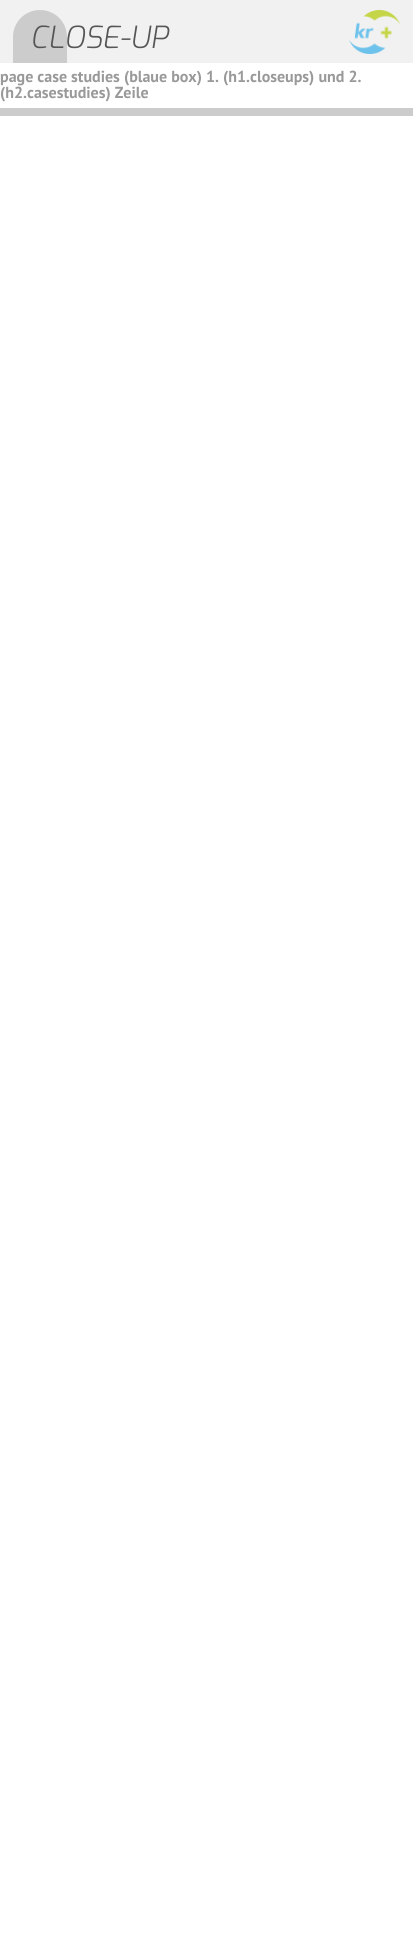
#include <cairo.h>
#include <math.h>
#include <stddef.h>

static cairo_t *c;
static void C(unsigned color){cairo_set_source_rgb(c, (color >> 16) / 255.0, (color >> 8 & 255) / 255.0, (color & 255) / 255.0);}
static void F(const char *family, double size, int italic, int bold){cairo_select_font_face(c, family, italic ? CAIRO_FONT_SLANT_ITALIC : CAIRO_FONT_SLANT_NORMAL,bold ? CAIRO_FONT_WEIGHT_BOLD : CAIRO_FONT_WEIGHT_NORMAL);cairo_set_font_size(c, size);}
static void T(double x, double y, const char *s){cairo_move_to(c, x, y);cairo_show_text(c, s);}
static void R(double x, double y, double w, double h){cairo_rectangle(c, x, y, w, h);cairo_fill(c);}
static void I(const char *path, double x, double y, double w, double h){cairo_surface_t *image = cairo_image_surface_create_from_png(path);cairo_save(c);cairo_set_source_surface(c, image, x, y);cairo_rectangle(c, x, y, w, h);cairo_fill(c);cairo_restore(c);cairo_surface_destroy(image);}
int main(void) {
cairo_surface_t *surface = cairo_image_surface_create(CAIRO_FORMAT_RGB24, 413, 1949);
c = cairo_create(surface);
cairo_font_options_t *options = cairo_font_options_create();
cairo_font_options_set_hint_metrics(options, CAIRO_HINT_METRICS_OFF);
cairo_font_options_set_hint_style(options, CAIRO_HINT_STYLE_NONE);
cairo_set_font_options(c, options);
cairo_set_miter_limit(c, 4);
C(0xffffff);
cairo_paint(c);
C(0xf1f1f1);
R(0,0,413,63);
C(0xcccccc);
cairo_new_path(c);
cairo_move_to(c,40,10);
cairo_curve_to(c,55,10,67,22,67,37);
cairo_line_to(c,67,63);
cairo_line_to(c,13,63);
cairo_line_to(c,13,37);
cairo_curve_to(c,13,22,25,10,40,10);
cairo_close_path(c);
cairo_fill(c);
I("1.png",349,10,51,44);
F("Exo Light",30.5,1,0);
C(0x555555);
T(30,48,"CLOSE-UP");
F("PT Sans",16,0,1);
C(0x999999);
T(0,82,"page case studies (blaue box) 1. (h1.closeups) und 2.");
T(0,98,"(h2.casestudies) Zeile");
C(0xcccccc);
R(0,108,413,8);
cairo_surface_write_to_png(surface, "o.png");
cairo_font_options_destroy(options);
cairo_destroy(c);
cairo_surface_destroy(surface);
return 0;
}
